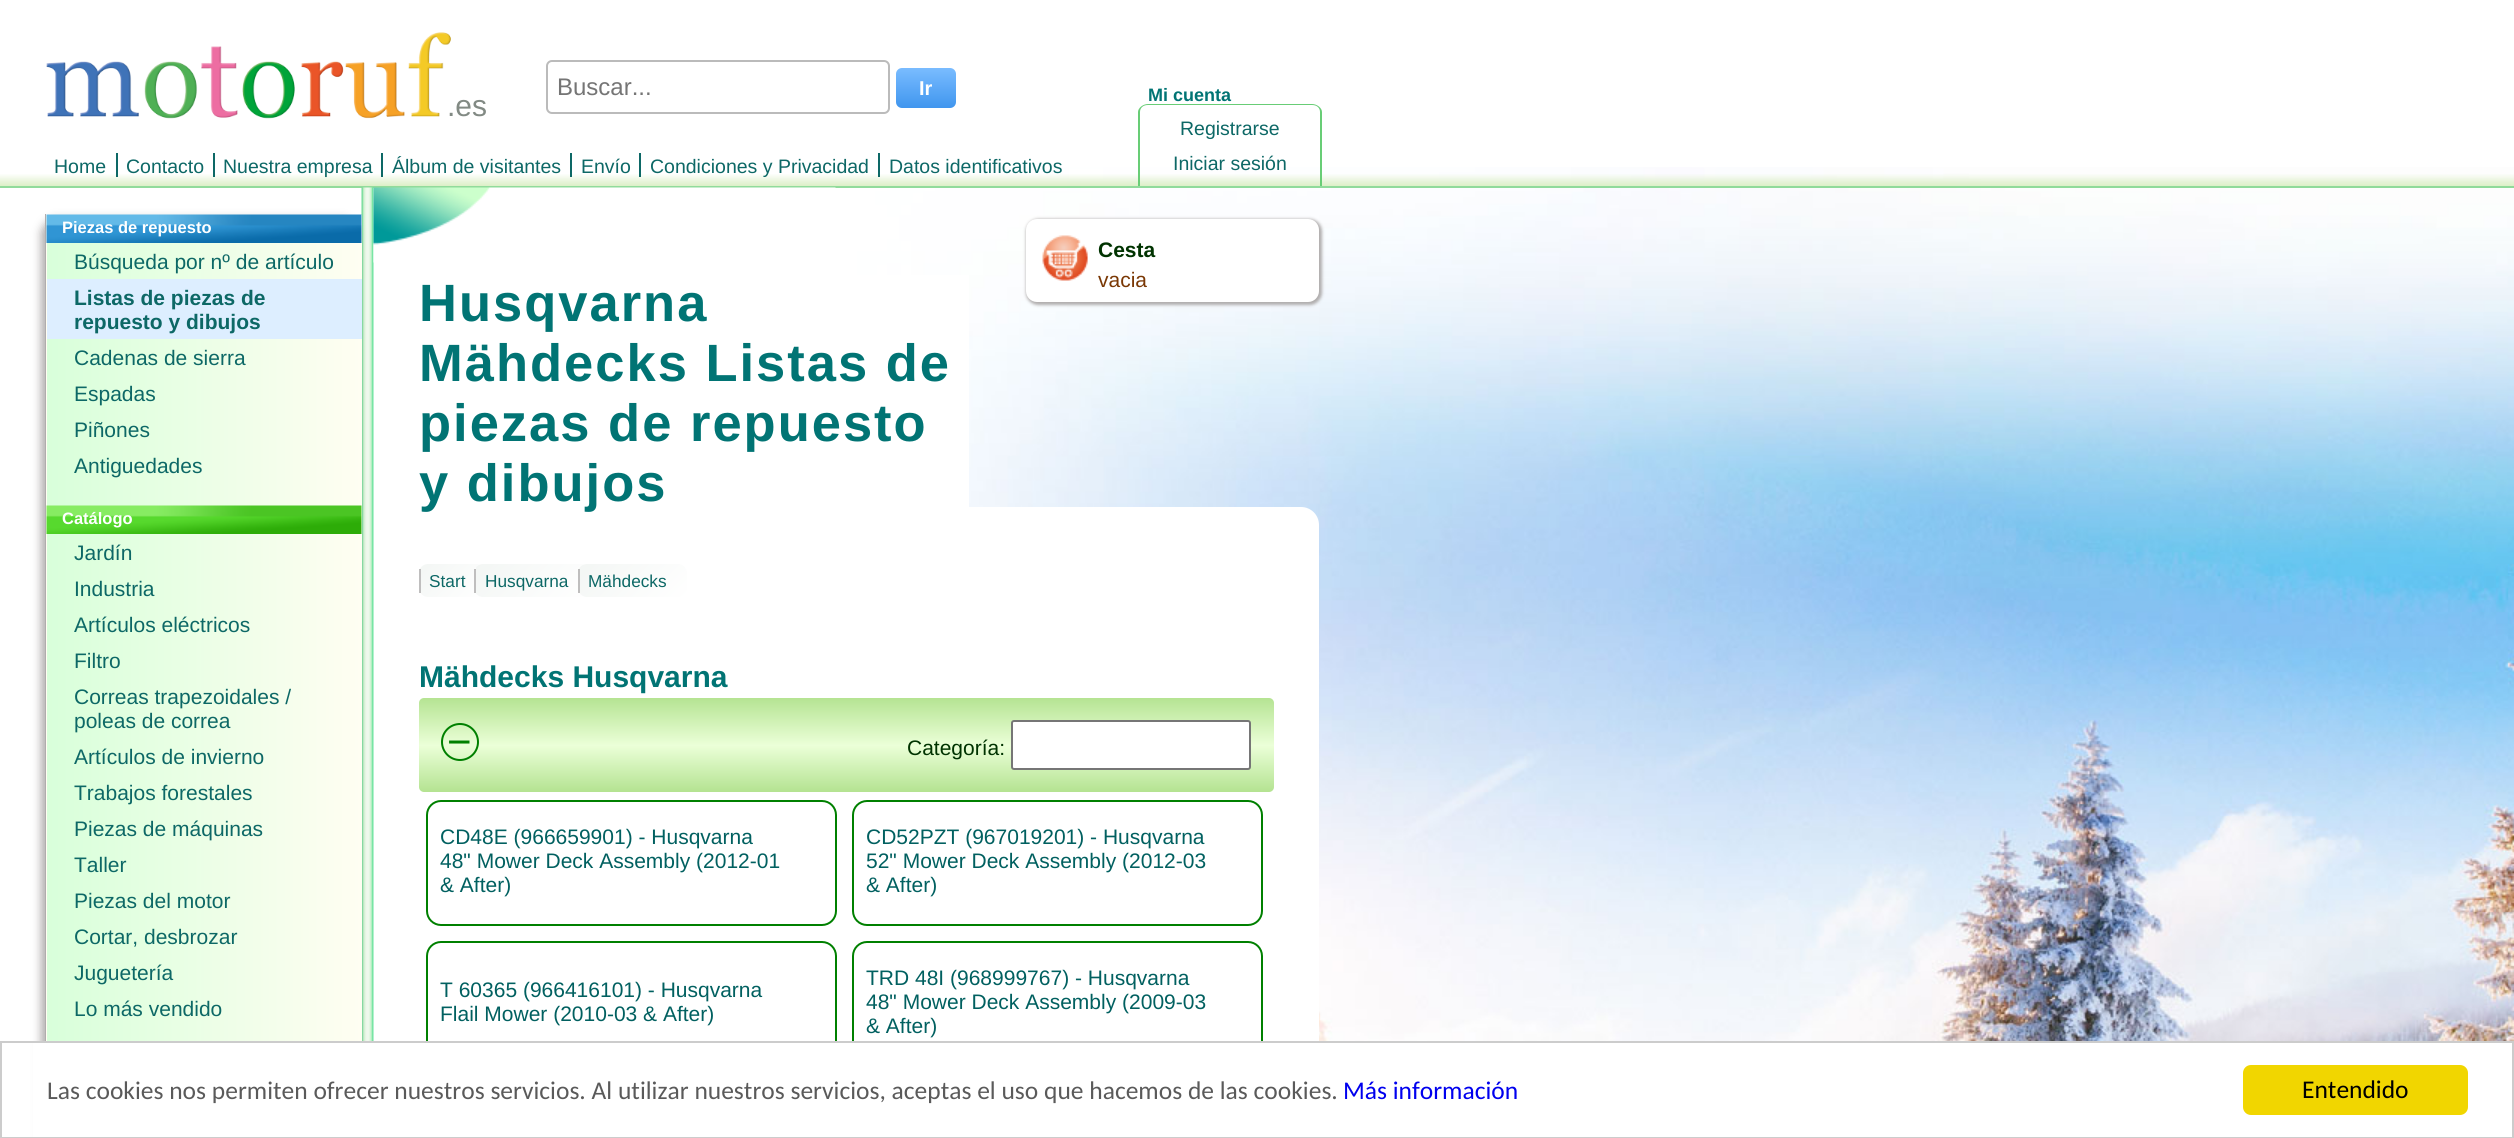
#include <cairo.h>
#include <math.h>
#include <stddef.h>

static cairo_t *c;
static void C(unsigned color){cairo_set_source_rgb(c, (color >> 16) / 255.0, (color >> 8 & 255) / 255.0, (color & 255) / 255.0);}
static void F(const char *family, double size, int italic, int bold){cairo_select_font_face(c, family, italic ? CAIRO_FONT_SLANT_ITALIC : CAIRO_FONT_SLANT_NORMAL,bold ? CAIRO_FONT_WEIGHT_BOLD : CAIRO_FONT_WEIGHT_NORMAL);cairo_set_font_size(c, size);}
static void T(double x, double y, const char *s){cairo_move_to(c, x, y);cairo_show_text(c, s);}
static void L(double x, double y, const char *s, double letter, double word){cairo_move_to(c, x, y);while (*s) {char ch[5] = {0};int n = 0;do ch[n++] = *s++; while ((*s & 0xC0) == 0x80);cairo_show_text(c, ch);cairo_rel_move_to(c, letter + word * (*ch == ' '), 0);}}
static void R(double x, double y, double w, double h){cairo_rectangle(c, x, y, w, h);cairo_fill(c);}
static void Q(double x, double y, double w, double h, double r){cairo_new_sub_path(c);cairo_arc(c, x + w - r, y + h - r, r, 0, M_PI / 2);cairo_arc(c, x + r, y + h - r, r, M_PI / 2, M_PI);cairo_arc(c, x + r, y + r, r, M_PI, 1.5 * M_PI);cairo_arc(c, x + w - r, y + r, r, 1.5 * M_PI, 2 * M_PI);cairo_close_path(c);}
static void S(double x, double y, double w, double h, double r, double blur, double alpha){cairo_push_group_with_content(c, CAIRO_CONTENT_ALPHA);cairo_set_operator(c, CAIRO_OPERATOR_SOURCE);for (int i = 15; i >= -15 && fmin(w, h) + blur * i / 3 > 0; i -= 2) {double e = blur * i / 6;cairo_set_source_rgba(c, 0, 0, 0, alpha * erfc((i - 1) / 8.5) / 2);Q(x - e, y - e, w + 2 * e, h + 2 * e, fmax(0, fmin(r + e + blur * .6, fmin(w, h) / 2 + e)));cairo_fill(c);}cairo_pattern_t *soft = cairo_pop_group(c);cairo_mask(c, soft);cairo_pattern_destroy(soft);}
static void I(const char *path, double x, double y, double w, double h){cairo_surface_t *image = cairo_image_surface_create_from_png(path);cairo_save(c);cairo_set_source_surface(c, image, x, y);cairo_rectangle(c, x, y, w, h);cairo_fill(c);cairo_restore(c);cairo_surface_destroy(image);}
int main(void) {
cairo_surface_t *surface = cairo_image_surface_create(CAIRO_FORMAT_RGB24, 2514, 1138);
c = cairo_create(surface);
cairo_font_options_t *options = cairo_font_options_create();
cairo_font_options_set_hint_metrics(options, CAIRO_HINT_METRICS_OFF);
cairo_font_options_set_hint_style(options, CAIRO_HINT_STYLE_NONE);
cairo_set_font_options(c, options);
cairo_set_miter_limit(c, 4);
cairo_pattern_t *gradient;
C(0xffffff);
cairo_paint(c);
I("1.png",857,167,1657,874);
I("2.png",46,32,405,87);
F("Liberation Sans",30,0,0);
C(0x828a84);
T(447,116,".es");
Q(547,61,342,52,5);
C(0xbbbbbb);
cairo_stroke(c);
F("Liberation Sans",24,0,0);
C(0x757575);
T(557,95,"Buscar...");
gradient = cairo_pattern_create_linear(926,68,926,108);
cairo_pattern_add_color_stop_rgba(gradient,0,0.478,0.737,1,1);
cairo_pattern_add_color_stop_rgba(gradient,.44,0.376,0.671,0.973,1);
cairo_pattern_add_color_stop_rgba(gradient,1,0.251,0.588,0.933,1);
cairo_set_source(c,gradient);
cairo_pattern_destroy(gradient);
Q(896,68,60,40,6);
cairo_fill(c);
F("Liberation Sans",20,0,1);
C(0xffffff);
T(919,95,"Ir");
F("Liberation Sans",18,0,1);
C(0x017474);
T(1148,101,"Mi cuenta");
gradient = cairo_pattern_create_linear(1257,145,1257,186);
cairo_pattern_add_color_stop_rgba(gradient,.69,0.863,0.937,0.78,0);
cairo_pattern_add_color_stop_rgba(gradient,1,0.863,0.937,0.78,1);
cairo_set_source(c,gradient);
cairo_pattern_destroy(gradient);
R(0,174,2514,12);
C(0x68cd76);
cairo_set_fill_rule(c,CAIRO_FILL_RULE_EVEN_ODD);
cairo_new_path(c);
cairo_move_to(c,1148,104);
cairo_line_to(c,1312,104);
cairo_curve_to(c,1317,104,1322,108,1322,112);
cairo_line_to(c,1322,186);
cairo_line_to(c,1138,186);
cairo_line_to(c,1138,112);
cairo_curve_to(c,1138,108,1143,104,1148,104);
cairo_close_path(c);
cairo_move_to(c,1148,105);
cairo_line_to(c,1312,105);
cairo_curve_to(c,1317,105,1320,108,1320,112);
cairo_line_to(c,1320,186);
cairo_line_to(c,1140,186);
cairo_line_to(c,1140,112);
cairo_curve_to(c,1140,108,1143,105,1148,105);
cairo_close_path(c);
cairo_fill(c);
F("Liberation Sans",19.5,0,0);
C(0x0d6866);
T(1180,135,"Registrarse");
T(1173,170,"Iniciar sesión");
cairo_set_source_rgba(c,0.408,0.804,0.463,0.73);
R(0,186,2514,2);
C(0x0d6866);
T(54,173,"Home");
R(116,153,2,24);
T(126,173,"Contacto");
R(213,153,2,24);
T(223,173,"Nuestra empresa");
R(381,153,2,24);
T(392,173,"Álbum de visitantes");
R(570,153,2,24);
T(581,173,"Envío");
R(639,153,2,24);
T(650,173,"Condiciones y Privacidad");
R(878,153,2,24);
T(889,173,"Datos identificativos");
I("5.png",361,187,13,854);
C(0xb0adad);
S(41,219,316,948,15,4.5,1);
gradient = cairo_pattern_create_linear(-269,738,47,738);
cairo_pattern_add_color_stop_rgba(gradient,0,0.847,1,0.855,1);
cairo_pattern_add_color_stop_rgba(gradient,1,1,0.996,0.949,1);
cairo_set_source(c,gradient);
cairo_pattern_destroy(gradient);
R(46,215,1,826);
gradient = cairo_pattern_create_linear(46,738,362,738);
cairo_pattern_add_color_stop_rgba(gradient,0,0.847,1,0.855,1);
cairo_pattern_add_color_stop_rgba(gradient,1,1,0.996,0.949,1);
cairo_set_source(c,gradient);
cairo_pattern_destroy(gradient);
R(47,215,315,826);
C(0xb0adad);
cairo_new_path(c);
cairo_move_to(c,45,214);
cairo_line_to(c,362,214);
cairo_line_to(c,362,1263);
cairo_line_to(c,60,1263);
cairo_curve_to(c,52,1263,45,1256,45,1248);
cairo_close_path(c);
cairo_move_to(c,46,214);
cairo_line_to(c,362,214);
cairo_line_to(c,362,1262);
cairo_line_to(c,60,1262);
cairo_curve_to(c,53,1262,46,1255,46,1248);
cairo_close_path(c);
cairo_fill(c);
I("3.png",46,214,316,29);
F("Liberation Sans",16.5,0,1);
C(0xffffff);
T(62,233,"Piezas de repuesto");
F("Liberation Sans",21,0,0);
C(0x0d6866);
T(74,269,"Búsqueda por nº de artículo");
C(0xddeeff);
R(47,279,315,60);
F("Liberation Sans",21,0,1);
C(0x0d6866);
T(74,305,"Listas de piezas de");
T(74,329,"repuesto y dibujos");
F("Liberation Sans",21,0,0);
T(74,365,"Cadenas de sierra");
T(74,401,"Espadas");
T(74,437,"Piñones");
T(74,473,"Antiguedades");
I("4.png",46,505,316,29);
F("Liberation Sans",16.5,0,1);
C(0xffffff);
T(62,524,"Catálogo");
F("Liberation Sans",21,0,0);
C(0x0d6866);
T(74,560,"Jardín");
T(74,596,"Industria");
T(74,632,"Artículos eléctricos");
T(74,668,"Filtro");
T(74,704,"Correas trapezoidales /");
T(74,728,"poleas de correa");
T(74,764,"Artículos de invierno");
T(74,800,"Trabajos forestales");
T(74,836,"Piezas de máquinas");
T(74,872,"Taller");
T(74,908,"Piezas del motor");
T(74,944,"Cortar, desbrozar");
T(74,980,"Juguetería");
T(74,1016,"Lo más vendido");
C(0xffffff);
R(857,275,112,232);
I("6.png",373,187,463,76);
F("Liberation Sans",52.5,0,1);
C(0x017474);
L(419,321,"Husqvarna",2,0);
L(419,381,"Mähdecks Listas de",2,0);
L(419,441,"piezas de repuesto",2,0);
C(0xffffff);
cairo_new_path(c);
cairo_move_to(c,374,507);
cairo_line_to(c,1301,507);
cairo_curve_to(c,1311,507,1319,515,1319,525);
cairo_line_to(c,1319,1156);
cairo_line_to(c,374,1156);
cairo_close_path(c);
cairo_fill(c);
C(0x017474);
L(419,501,"y dibujos",2,0);
cairo_save(c);
cairo_set_fill_rule(c,CAIRO_FILL_RULE_WINDING);
Q(419,564,67,33,9);
cairo_clip(c);
gradient = cairo_pattern_create_linear(428,556,478,605);
cairo_pattern_add_color_stop_rgba(gradient,0,0.953,0.965,0.957,1);
cairo_pattern_add_color_stop_rgba(gradient,1,1,1,1,1);
cairo_set_source(c,gradient);
cairo_pattern_destroy(gradient);
cairo_new_path(c);
cairo_move_to(c,420,564);
cairo_line_to(c,477,564);
cairo_curve_to(c,482,564,486,568,486,573);
cairo_line_to(c,486,588);
cairo_curve_to(c,486,593,482,597,477,597);
cairo_line_to(c,420,597);
cairo_close_path(c);
cairo_fill(c);
cairo_restore(c);
C(0xbfbebe);
R(419,569,2,24);
F("Liberation Sans",17.25,0,0);
C(0x0d6866);
T(429,587,"Start");
cairo_save(c);
cairo_set_fill_rule(c,CAIRO_FILL_RULE_WINDING);
Q(474,564,116,33,9);
cairo_clip(c);
gradient = cairo_pattern_create_linear(382,544,455,617);
cairo_pattern_add_color_stop_rgba(gradient,0,0.953,0.965,0.957,1);
cairo_pattern_add_color_stop_rgba(gradient,1,1,1,1,1);
cairo_set_source(c,gradient);
cairo_pattern_destroy(gradient);
R(475,564,1,33);
gradient = cairo_pattern_create_linear(496,544,569,617);
cairo_pattern_add_color_stop_rgba(gradient,0,0.953,0.965,0.957,1);
cairo_pattern_add_color_stop_rgba(gradient,1,1,1,1,1);
cairo_set_source(c,gradient);
cairo_pattern_destroy(gradient);
cairo_new_path(c);
cairo_move_to(c,476,564);
cairo_line_to(c,581,564);
cairo_curve_to(c,586,564,590,568,590,573);
cairo_line_to(c,590,588);
cairo_curve_to(c,590,593,586,597,581,597);
cairo_line_to(c,476,597);
cairo_close_path(c);
cairo_fill(c);
cairo_restore(c);
C(0xbfbebe);
R(474,569,2,24);
C(0x0d6866);
T(485,587,"Husqvarna");
cairo_save(c);
cairo_set_fill_rule(c,CAIRO_FILL_RULE_WINDING);
Q(578,564,109,33,9);
cairo_clip(c);
gradient = cairo_pattern_create_linear(598,545,668,616);
cairo_pattern_add_color_stop_rgba(gradient,0,0.953,0.965,0.957,1);
cairo_pattern_add_color_stop_rgba(gradient,1,1,1,1,1);
cairo_set_source(c,gradient);
cairo_pattern_destroy(gradient);
cairo_new_path(c);
cairo_move_to(c,579,564);
cairo_line_to(c,678,564);
cairo_curve_to(c,683,564,687,568,687,573);
cairo_line_to(c,687,588);
cairo_curve_to(c,687,593,683,597,678,597);
cairo_line_to(c,579,597);
cairo_close_path(c);
cairo_fill(c);
cairo_restore(c);
C(0xbfbebe);
R(578,569,2,24);
C(0x0d6866);
T(588,587,"Mähdecks");
F("Liberation Sans",30,0,1);
C(0x017474);
T(419,687,"Mähdecks Husqvarna");
gradient = cairo_pattern_create_linear(846,697,846,792);
cairo_pattern_add_color_stop_rgba(gradient,0,0.706,0.89,0.569,1);
cairo_pattern_add_color_stop_rgba(gradient,.51,0.922,1,0.847,1);
cairo_pattern_add_color_stop_rgba(gradient,1,0.706,0.89,0.569,1);
cairo_set_source(c,gradient);
cairo_pattern_destroy(gradient);
Q(419,698,855,94,5);
cairo_fill(c);
cairo_arc(c,460,742,18,0,2 * M_PI);
C(0x008000);
cairo_stroke(c);
F("Liberation Sans",42,0,0);
T(447,756,"−");
F("Liberation Sans",21,0,0);
C(0x003300);
T(907,755,"Categoría:");
C(0xffffff);
Q(1012,721,238,48,2);
cairo_fill_preserve(c);
C(0x767676);
cairo_stroke(c);
Q(427,801,409,124,14);
C(0x008000);
cairo_stroke(c);
C(0x016060);
T(440,844,"CD48E (966659901) - Husqvarna");
T(440,868,"48\" Mower Deck Assembly (2012-01");
T(440,892,"& After)");
Q(853,801,409,124,14);
C(0x008000);
cairo_stroke(c);
C(0x016060);
T(866,844,"CD52PZT (967019201) - Husqvarna");
T(866,868,"52\" Mower Deck Assembly (2012-03");
T(866,892,"& After)");
Q(427,942,409,124,14);
C(0x008000);
cairo_stroke(c);
C(0x016060);
T(440,997,"T 60365 (966416101) - Husqvarna");
T(440,1021,"Flail Mower (2010-03 & After)");
Q(853,942,409,124,14);
C(0x008000);
cairo_stroke(c);
C(0x016060);
T(866,985,"TRD 48I (968999767) - Husqvarna");
T(866,1009,"48\" Mower Deck Assembly (2009-03");
T(866,1033,"& After)");
C(0xb0adad);
S(1026,219,296,86,12,1.5,1);
C(0xffffff);
Q(1026,219,293,83,11);
cairo_fill(c);
I("7.png",1042,235,46,46);
F("Liberation Sans",21,0,1);
C(0x003300);
T(1098,257,"Cesta");
F("Liberation Sans",21,0,0);
C(0x7a3805);
T(1098,287,"vacia");
C(0xffffff);
R(33,1043,1230,94);
cairo_rectangle(c,1,1042,2512,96);
C(0xcccccc);
cairo_stroke(c);
F("Carlito",25.5,0,0);
C(0x5a5a5a);
T(47,1099,"Las cookies nos permiten ofrecer nuestros servicios. Al utilizar nuestros servicios, aceptas el uso que hacemos de las cookies.");
C(0x0000ee);
T(1343,1099,"Más información");
C(0xf1d600);
Q(2243,1065,225,50,8);
cairo_fill(c);
C(0x000000);
T(2302,1098,"Entendido");
cairo_surface_write_to_png(surface, "o.png");
cairo_font_options_destroy(options);
cairo_destroy(c);
cairo_surface_destroy(surface);
return 0;
}
